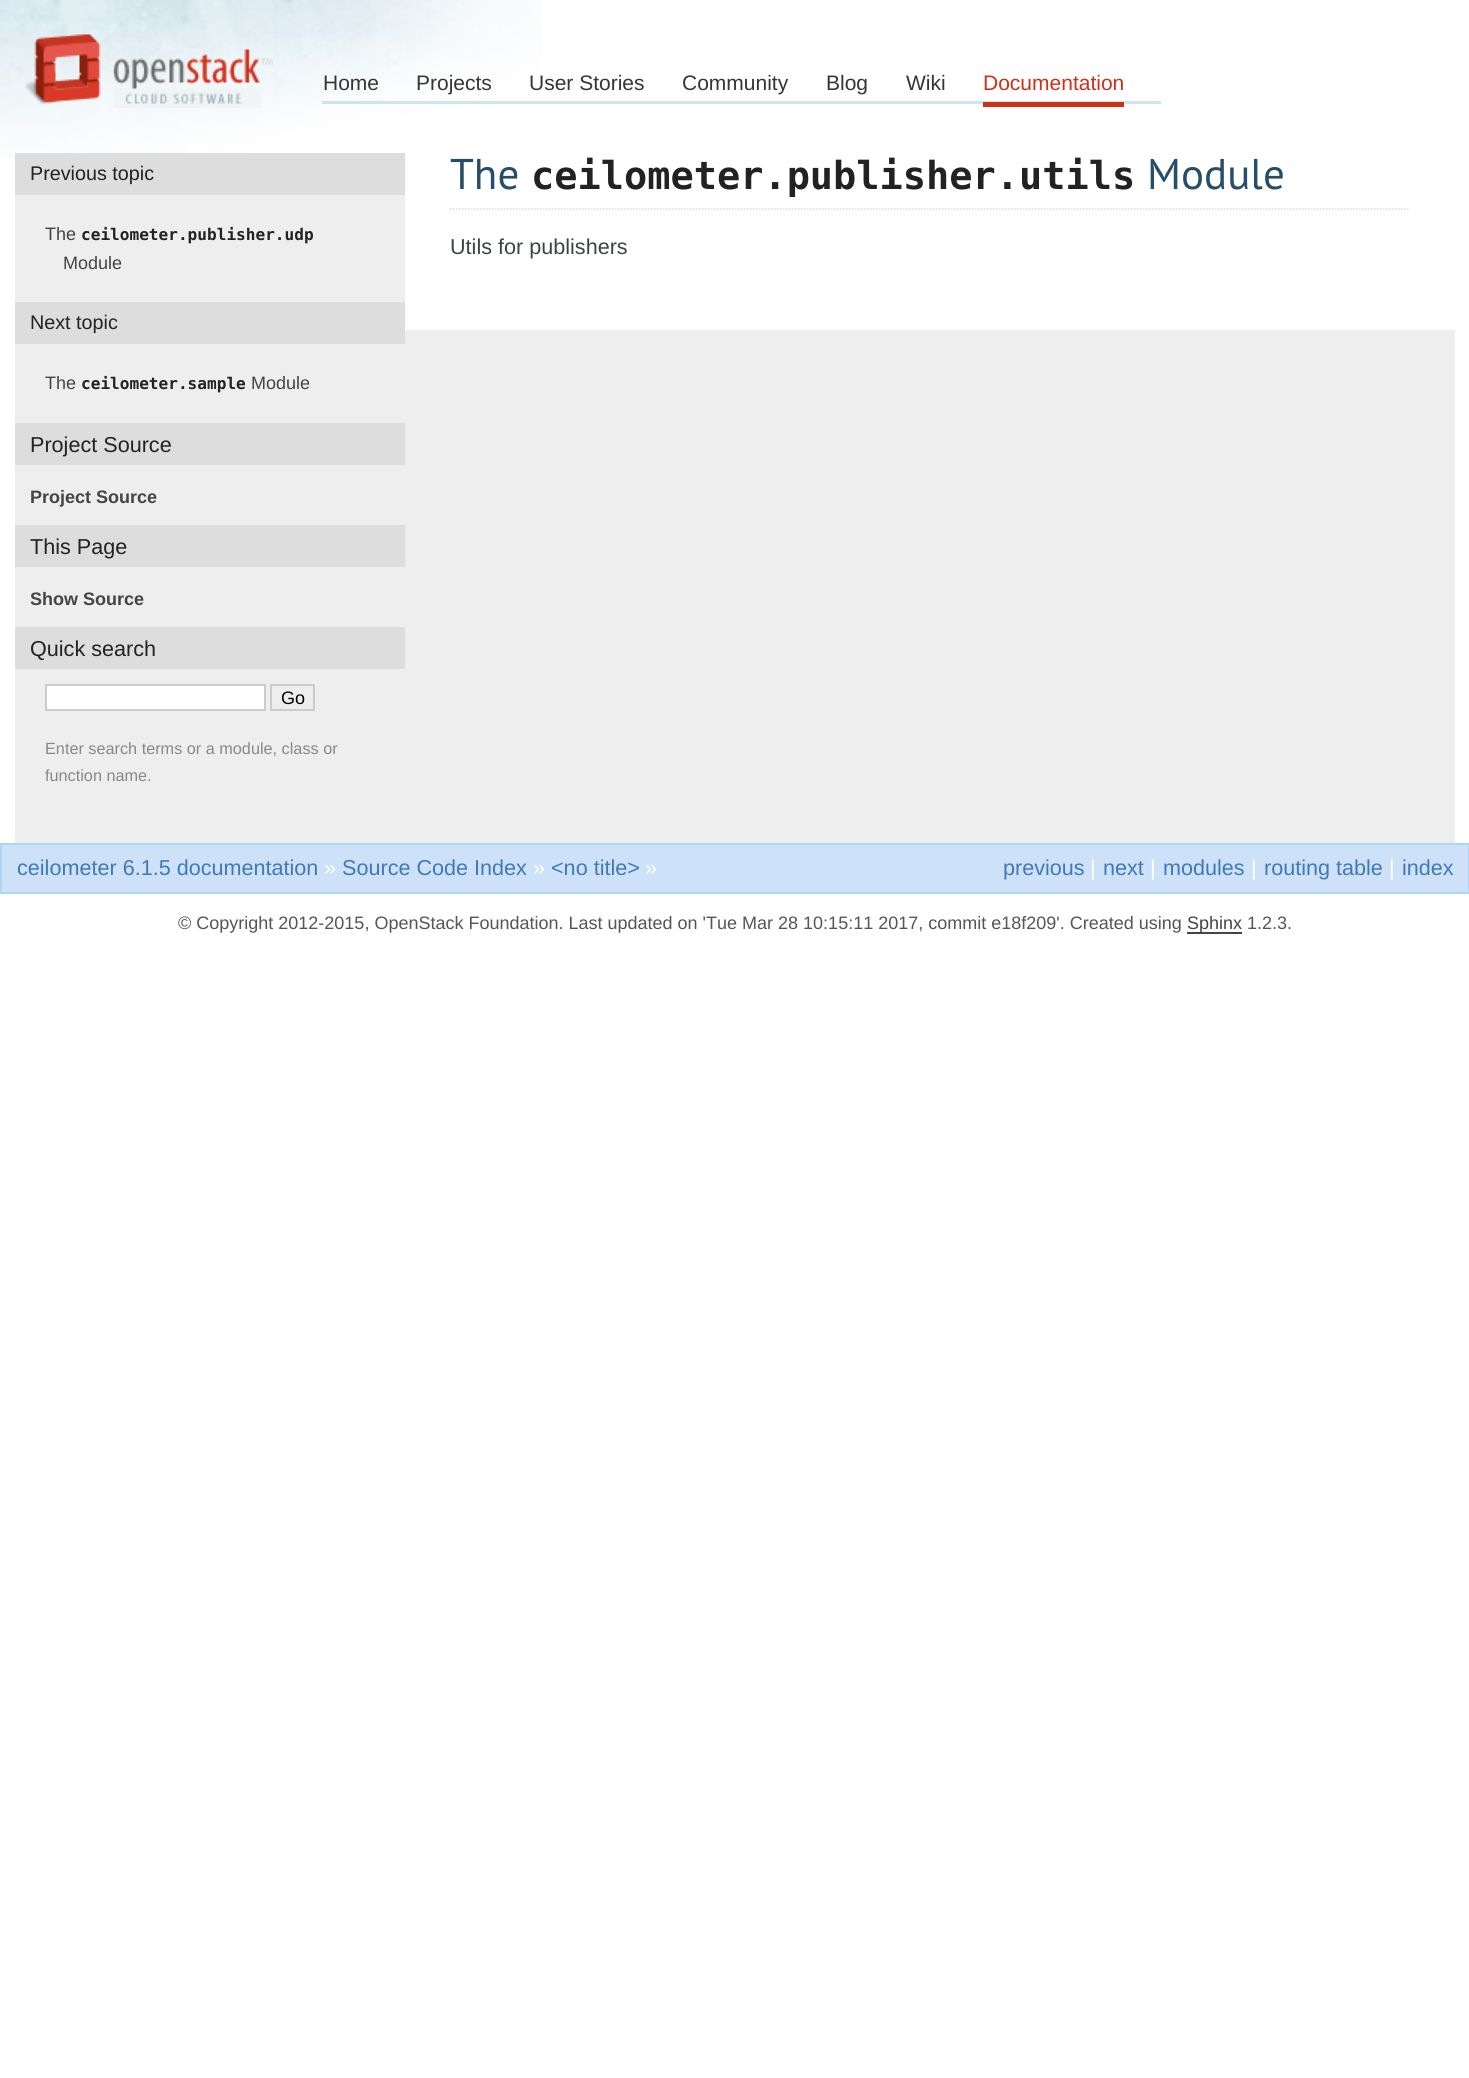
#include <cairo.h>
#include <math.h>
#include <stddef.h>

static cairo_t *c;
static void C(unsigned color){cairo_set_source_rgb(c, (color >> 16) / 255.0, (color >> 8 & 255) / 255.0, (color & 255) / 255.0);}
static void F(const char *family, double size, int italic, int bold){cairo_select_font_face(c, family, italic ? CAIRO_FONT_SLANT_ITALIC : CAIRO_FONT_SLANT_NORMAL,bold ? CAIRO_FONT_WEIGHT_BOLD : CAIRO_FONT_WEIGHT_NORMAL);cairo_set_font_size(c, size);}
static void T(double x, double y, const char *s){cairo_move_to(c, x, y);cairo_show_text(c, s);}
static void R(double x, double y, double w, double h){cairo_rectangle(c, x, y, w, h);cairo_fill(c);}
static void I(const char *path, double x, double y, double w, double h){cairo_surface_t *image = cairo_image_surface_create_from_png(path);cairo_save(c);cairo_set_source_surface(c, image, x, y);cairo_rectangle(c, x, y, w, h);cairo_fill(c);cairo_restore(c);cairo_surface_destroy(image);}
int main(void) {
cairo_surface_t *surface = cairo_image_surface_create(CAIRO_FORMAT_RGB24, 1469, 2078);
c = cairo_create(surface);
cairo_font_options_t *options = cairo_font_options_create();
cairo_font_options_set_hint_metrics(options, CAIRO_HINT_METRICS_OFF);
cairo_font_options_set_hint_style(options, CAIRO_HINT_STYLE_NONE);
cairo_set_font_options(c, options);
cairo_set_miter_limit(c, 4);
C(0xffffff);
cairo_paint(c);
I("1.png",0,0,542,157);
I("2.png",25,34,248,74);
cairo_set_source_rgba(c,0.769,0.882,0.914,0.84);
R(322,101,839,3);
F("Liberation Sans",21,0,0);
C(0x353535);
T(323,90,"Home");
T(416,90,"Projects");
T(529,90,"User Stories");
T(682,90,"Community");
T(826,90,"Blog");
T(906,90,"Wiki");
C(0xcf2f19);
R(983,102,141,5);
T(983,90,"Documentation");
C(0xeeeeee);
R(15,195,1440,648);
C(0xdddddd);
R(15,153,390,42);
F("Liberation Sans",19.75,0,0);
C(0x222222);
T(30,180,"Previous topic");
F("Liberation Sans",18,0,0);
C(0x444444);
T(45,240,"The");
F("DejaVu Sans Mono",16.1,0,1);
C(0x222222);
T(81,240,"ceilometer.publisher.udp");
F("Liberation Sans",18,0,0);
C(0x444444);
T(63,269,"Module");
C(0xdddddd);
R(15,302,390,42);
F("Liberation Sans",19.75,0,0);
C(0x222222);
T(30,329,"Next topic");
F("Liberation Sans",18,0,0);
C(0x444444);
T(45,389,"The");
F("DejaVu Sans Mono",16.1,0,1);
C(0x222222);
T(81,389,"ceilometer.sample");
F("Liberation Sans",18,0,0);
C(0x444444);
T(251,389,"Module");
C(0xdddddd);
R(15,423,390,42);
F("Liberation Sans",21.6,0,0);
C(0x222222);
T(30,452,"Project Source");
F("Liberation Sans",18,0,1);
C(0x444444);
T(30,503,"Project Source");
C(0xdddddd);
R(15,525,390,42);
F("Liberation Sans",21.6,0,0);
C(0x222222);
T(30,554,"This Page");
F("Liberation Sans",18,0,1);
C(0x444444);
T(30,605,"Show Source");
C(0xdddddd);
R(15,627,390,42);
F("Liberation Sans",21.6,0,0);
C(0x222222);
T(30,656,"Quick search");
C(0xffffff);
cairo_rectangle(c,46,685,219,25);
cairo_fill_preserve(c);
C(0xcccccc);
cairo_stroke(c);
cairo_rectangle(c,271,685,43,25);
cairo_stroke(c);
F("Liberation Sans",18,0,0);
C(0x000000);
T(281,704,"Go");
F("Liberation Sans",16.25,0,0);
C(0x888888);
T(45,754,"Enter search terms or a module, class or");
T(45,781,"function name.");
C(0xffffff);
R(405,195,1050,135);
cairo_new_path(c);
cairo_move_to(c,450,209);
cairo_line_to(c,1410,209);
C(0xc5e2ea);
cairo_set_line_width(c,1.5);
cairo_set_dash(c,(double[]){1.5,1.5},2,0);
cairo_stroke(c);
F("PT Sans",43,0,0);
C(0x264d69);
T(450,189,"The");
F("DejaVu Sans Mono",38.6,0,1);
C(0x222222);
T(531,189,"ceilometer.publisher.utils");
F("PT Sans",43,0,0);
C(0x264d69);
T(1147,189,"Module");
F("Liberation Sans",21.6,0,0);
C(0x3e4349);
T(450,254,"Utils for publishers");
C(0xcde2f8);
cairo_rectangle(c,1,844,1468,49);
cairo_fill_preserve(c);
C(0xb0d3f8);
cairo_set_line_width(c,2);
cairo_set_dash(c,NULL,0,0);
cairo_stroke(c);
C(0x4078ba);
T(17,875,"ceilometer 6.1.5 documentation");
C(0xffffff);
T(324,875,"»");
C(0x4078ba);
T(342,875,"Source Code Index");
C(0xffffff);
T(533,875,"»");
C(0x4078ba);
T(551,875,"<no title>");
C(0xffffff);
T(645,875,"»");
C(0x4078ba);
T(1003,875,"previous");
C(0xffffff);
T(1090,875,"|");
C(0x4078ba);
T(1103,875,"next");
C(0xffffff);
T(1150,875,"|");
C(0x4078ba);
T(1163,875,"modules");
C(0xffffff);
T(1251,875,"|");
C(0x4078ba);
T(1264,875,"routing table");
C(0xffffff);
T(1389,875,"|");
C(0x4078ba);
T(1402,875,"index");
F("Liberation Sans",18,0,0);
C(0x555555);
T(178,929,"© Copyright 2012-2015, OpenStack Foundation. Last updated on 'Tue Mar 28 10:15:11 2017, commit e18f209'. Created using");
C(0x444444);
R(1187,932,55,2);
T(1187,929,"Sphinx");
C(0x555555);
T(1247,929,"1.2.3.");
cairo_surface_write_to_png(surface, "o.png");
cairo_font_options_destroy(options);
cairo_destroy(c);
cairo_surface_destroy(surface);
return 0;
}
